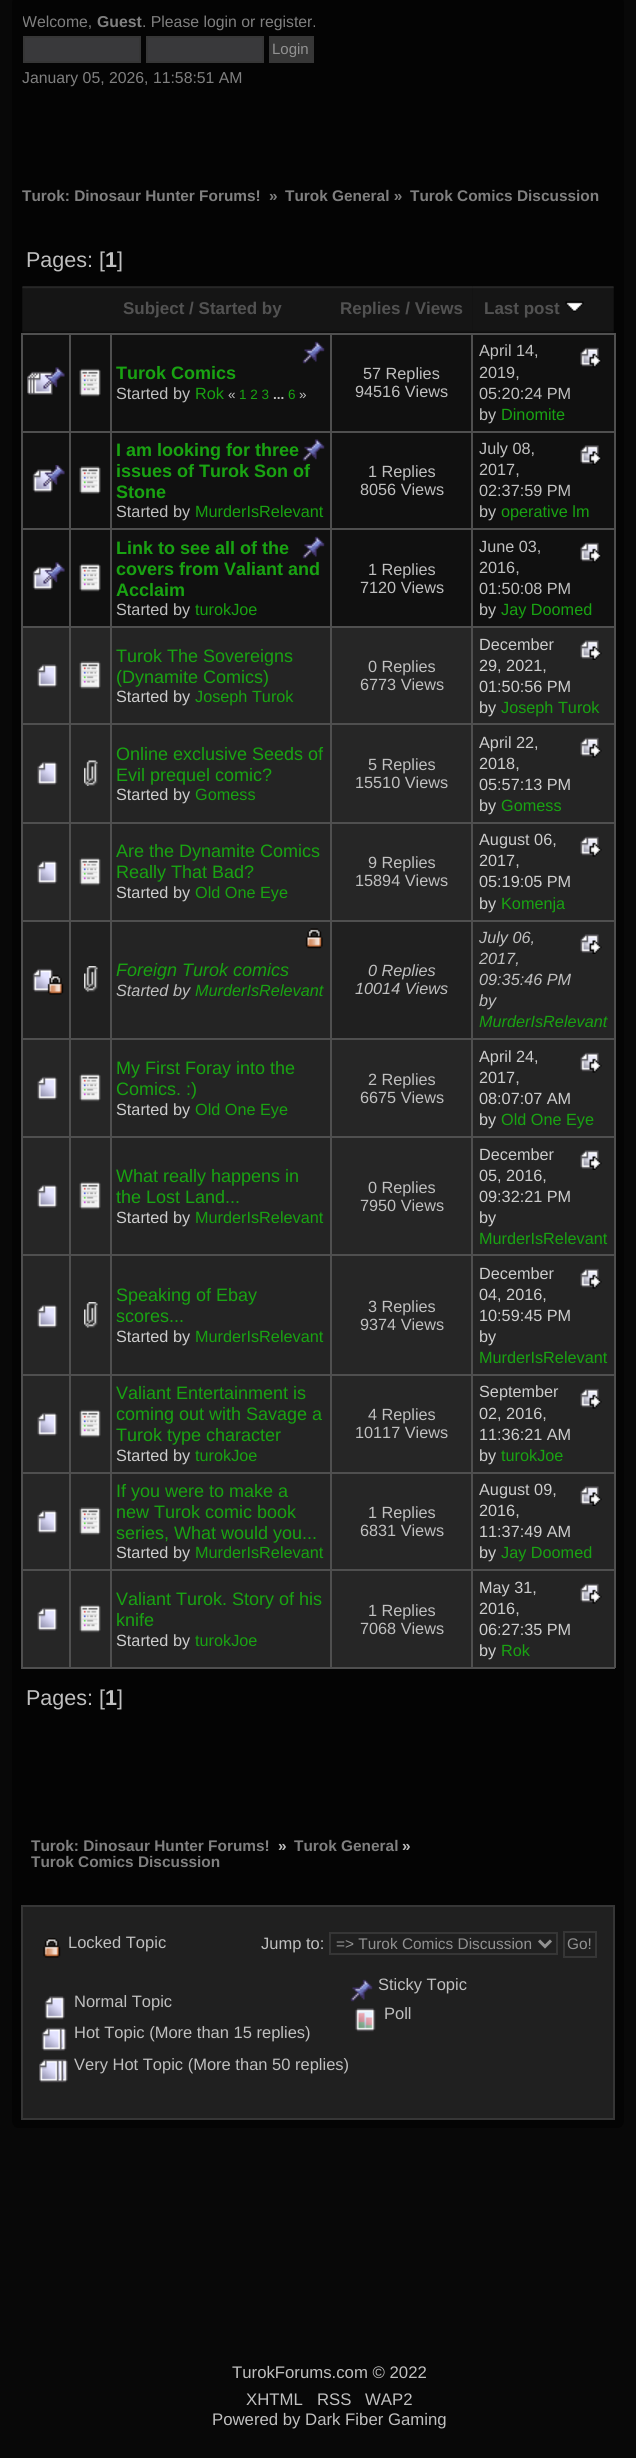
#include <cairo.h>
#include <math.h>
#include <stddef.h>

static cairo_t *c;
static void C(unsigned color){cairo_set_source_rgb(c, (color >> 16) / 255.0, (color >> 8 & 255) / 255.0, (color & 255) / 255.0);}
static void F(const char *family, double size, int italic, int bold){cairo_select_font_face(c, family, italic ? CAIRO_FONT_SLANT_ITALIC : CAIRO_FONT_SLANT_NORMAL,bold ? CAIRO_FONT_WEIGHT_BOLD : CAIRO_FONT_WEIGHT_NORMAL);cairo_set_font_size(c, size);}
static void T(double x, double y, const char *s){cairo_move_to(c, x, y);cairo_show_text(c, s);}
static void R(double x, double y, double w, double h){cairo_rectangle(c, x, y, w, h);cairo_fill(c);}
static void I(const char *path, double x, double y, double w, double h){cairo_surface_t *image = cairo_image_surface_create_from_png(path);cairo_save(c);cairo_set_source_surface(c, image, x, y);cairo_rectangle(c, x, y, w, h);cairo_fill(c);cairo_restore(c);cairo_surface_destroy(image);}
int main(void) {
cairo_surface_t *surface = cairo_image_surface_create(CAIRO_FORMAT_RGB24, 636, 2458);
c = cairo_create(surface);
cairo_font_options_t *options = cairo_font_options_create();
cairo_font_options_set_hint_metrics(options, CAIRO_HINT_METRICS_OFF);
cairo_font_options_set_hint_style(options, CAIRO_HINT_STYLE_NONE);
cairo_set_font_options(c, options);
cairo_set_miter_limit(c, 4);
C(0x080808);
cairo_paint(c);
I("1.png",12,0,612,2128);
cairo_save(c);
cairo_rectangle(c,23,0,601,87);
cairo_clip(c);
F("Liberation Sans",15.8,0,0);
C(0x808080);
T(22,27,"Welcome,");
cairo_restore(c);
F("Liberation Sans",15.8,0,1);
C(0x808080);
T(97,27,"Guest");
F("Liberation Sans",15.8,0,0);
T(142,27,". Please login or register.");
C(0x39393b);
cairo_rectangle(c,24,37,116,25);
cairo_fill_preserve(c);
C(0x363636);
cairo_stroke(c);
C(0x39393b);
cairo_rectangle(c,147,37,116,25);
cairo_fill_preserve(c);
C(0x363636);
cairo_stroke(c);
C(0x373737);
cairo_rectangle(c,270,37,43,25);
cairo_fill_preserve(c);
C(0x363636);
cairo_stroke(c);
F("Liberation Sans",15,0,0);
C(0x929292);
T(272,54,"Login");
F("Liberation Sans",15.8,0,0);
C(0x808080);
T(22,83,"January 05, 2026, 11:58:51 AM");
F("Liberation Sans",15.4,0,1);
T(22,201,"Turok: Dinosaur Hunter Forums!");
T(269,201,"»");
T(285,201,"Turok General »");
T(410,201,"Turok Comics Discussion");
F("Liberation Sans",21.5,0,0);
C(0xc0c0c0);
T(26,267,"Pages: [");
F("Liberation Sans",21.5,0,1);
T(105,267,"1");
F("Liberation Sans",21.5,0,0);
T(117,267,"]");
I("2.png",22,286,89,47);
I("3.png",111,286,219,47);
F("Liberation Sans",17,0,1);
C(0x525252);
T(123,314,"Subject / Started by");
I("4.png",330,286,143,47);
T(340,314,"Replies / Views");
I("5.png",472,286,142,47);
T(484,314,"Last post");
I("6.png",565,301,19,11);
C(0x101010);
R(23,335,46,96);
C(0x4f4f4f);
R(471,333,144,2);
R(471,431,144,2);
R(471,528,144,2);
R(471,626,144,2);
R(471,723,144,2);
R(471,822,144,2);
R(471,920,144,2);
R(471,1038,144,2);
R(471,1136,144,2);
R(471,1254,144,2);
R(471,1374,144,2);
R(471,1472,144,2);
R(471,1569,144,2);
R(614,1569,2,99);
R(471,1667,144,2);
R(471,1569,2,99);
R(330,1569,143,2);
R(471,1472,2,99);
R(330,1472,143,2);
R(471,1374,2,99);
R(330,1374,143,2);
R(471,1254,2,122);
R(330,1254,143,2);
R(471,1136,2,120);
R(330,1136,143,2);
R(471,1038,2,99);
R(330,1038,143,2);
R(471,920,2,120);
R(330,920,143,2);
R(471,822,2,99);
R(330,822,143,2);
R(471,723,2,101);
R(330,723,143,2);
R(471,626,2,99);
R(330,626,143,2);
R(471,528,2,99);
R(330,528,143,2);
R(471,431,2,99);
R(330,431,143,2);
R(471,333,2,99);
R(330,333,143,2);
R(330,1667,143,2);
R(330,1569,2,99);
R(110,1569,222,2);
R(330,1472,2,99);
R(110,1472,222,2);
R(330,1374,2,99);
R(110,1374,222,2);
R(330,1254,2,122);
R(110,1254,222,2);
R(330,1136,2,120);
R(110,1136,222,2);
R(330,1038,2,99);
R(110,1038,222,2);
R(330,920,2,120);
R(110,920,222,2);
R(330,822,2,99);
R(110,822,222,2);
R(330,723,2,101);
R(110,723,222,2);
R(330,626,2,99);
R(110,626,222,2);
R(330,528,2,99);
R(110,528,222,2);
R(330,431,2,99);
R(110,431,222,2);
R(330,333,2,99);
R(110,333,222,2);
R(110,1667,222,2);
R(110,1569,2,99);
R(69,1569,42,2);
R(110,1472,2,99);
R(69,1472,42,2);
R(110,1374,2,99);
R(69,1374,42,2);
R(110,1254,2,122);
R(69,1254,42,2);
R(110,1136,2,120);
R(69,1136,42,2);
R(110,1038,2,99);
R(69,1038,42,2);
R(110,920,2,120);
R(69,920,42,2);
R(110,822,2,99);
R(69,822,42,2);
R(110,723,2,101);
R(69,723,42,2);
R(110,626,2,99);
R(69,626,42,2);
R(110,528,2,99);
R(69,528,42,2);
R(110,431,2,99);
R(69,431,42,2);
R(110,333,2,99);
R(69,333,42,2);
R(69,1667,42,2);
R(69,1569,2,99);
R(21,1569,50,2);
R(69,1472,2,99);
R(21,1472,50,2);
R(69,1374,2,99);
R(21,1374,50,2);
R(69,1254,2,122);
R(21,1254,50,2);
R(69,1136,2,120);
R(21,1136,50,2);
R(69,1038,2,99);
R(21,1038,50,2);
R(69,920,2,120);
R(21,920,50,2);
R(69,822,2,99);
R(21,822,50,2);
R(69,723,2,101);
R(21,723,50,2);
R(69,626,2,99);
R(21,626,50,2);
R(69,528,2,99);
R(21,528,50,2);
R(69,431,2,99);
R(21,431,50,2);
R(69,333,2,99);
R(21,333,50,2);
R(21,1667,50,2);
R(21,1569,2,99);
R(21,1472,2,99);
R(21,1374,2,99);
R(21,1254,2,122);
R(21,1136,2,120);
R(21,1038,2,99);
R(21,920,2,120);
R(21,822,2,99);
R(21,723,2,101);
R(21,626,2,99);
R(21,528,2,99);
R(21,431,2,99);
R(21,333,2,99);
I("7.png",27,367,38,28);
C(0x101010);
R(71,335,39,96);
I("8.png",79,368,22,29);
R(112,335,218,96);
I("9.png",302,341,23,23);
F("Liberation Sans",18,0,1);
C(0x19a312);
T(116,379,"Turok Comics");
F("Liberation Sans",16.25,0,0);
C(0xc0c0c0);
T(116,399,"Started by");
C(0x19a312);
T(195,399,"Rok");
F("Liberation Sans",13.5,0,0);
C(0xc0c0c0);
T(228,399,"«");
C(0x19a312);
T(239,399,"1 2 3");
F("Liberation Sans",13.5,0,1);
C(0xc0c0c0);
T(273,399,"...");
F("Liberation Sans",13.5,0,0);
C(0x19a312);
T(288,399,"6");
C(0xc0c0c0);
T(299,399,"»");
C(0x101010);
R(332,335,139,96);
F("Liberation Sans",16.25,0,0);
C(0xc0c0c0);
T(363,379,"57 Replies");
T(355,397,"94516 Views");
C(0x101010);
R(473,335,141,96);
C(0x4f4f4f);
R(614,1472,2,99);
R(614,1374,2,99);
R(614,1254,2,122);
R(614,1136,2,120);
R(614,1038,2,99);
R(614,920,2,120);
R(614,822,2,99);
R(614,723,2,101);
R(614,626,2,99);
R(614,528,2,99);
R(614,431,2,99);
R(614,333,2,99);
C(0xc0c0c0);
T(479,356,"April 14,");
I("10.png",580,347,22,21);
T(479,378,"2019,");
T(479,399,"05:20:24 PM");
T(479,420,"by");
C(0x19a312);
T(501,420,"Dinomite");
C(0x101010);
R(23,433,46,95);
I("11.png",32,465,33,28);
R(71,433,39,95);
I("12.png",79,466,22,28);
R(112,433,218,95);
I("13.png",302,439,23,22);
F("Liberation Sans",18,0,1);
C(0x19a312);
T(116,456,"I am looking for three");
T(116,477,"issues of Turok Son of");
T(116,498,"Stone");
F("Liberation Sans",16.25,0,0);
C(0xc0c0c0);
T(116,517,"Started by");
C(0x19a312);
T(195,517,"MurderIsRelevant");
C(0x101010);
R(332,433,139,95);
C(0xc0c0c0);
T(368,477,"1 Replies");
T(360,495,"8056 Views");
C(0x101010);
R(473,433,141,95);
C(0xc0c0c0);
T(479,454,"July 08,");
I("14.png",580,445,22,20);
T(479,475,"2017,");
T(479,496,"02:37:59 PM");
T(479,517,"by");
C(0x19a312);
T(501,517,"operative lm");
C(0x101010);
R(23,530,46,96);
I("15.png",32,562,33,28);
R(71,530,39,96);
I("8.png",79,563,22,29);
R(112,530,218,96);
I("9.png",302,536,23,23);
F("Liberation Sans",18,0,1);
C(0x19a312);
T(116,554,"Link to see all of the");
T(116,575,"covers from Valiant and");
T(116,596,"Acclaim");
F("Liberation Sans",16.25,0,0);
C(0xc0c0c0);
T(116,615,"Started by");
C(0x19a312);
T(195,615,"turokJoe");
C(0x101010);
R(332,530,139,96);
C(0xc0c0c0);
T(368,575,"1 Replies");
T(360,593,"7120 Views");
C(0x101010);
R(473,530,141,96);
C(0xc0c0c0);
T(479,552,"June 03,");
I("10.png",580,542,22,21);
T(479,573,"2016,");
T(479,594,"01:50:08 PM");
T(479,615,"by");
C(0x19a312);
T(501,615,"Jay Doomed");
C(0x262626);
R(23,628,46,95);
I("16.png",37,664,21,24);
R(71,628,39,95);
I("17.png",79,661,22,28);
C(0x242424);
R(112,628,218,95);
F("Liberation Sans",18,0,0);
C(0x19a312);
T(116,662,"Turok The Sovereigns");
T(116,683,"(Dynamite Comics)");
F("Liberation Sans",16.25,0,0);
C(0xcdcdcd);
T(116,702,"Started by");
C(0x19a312);
T(195,702,"Joseph Turok");
C(0x262626);
R(332,628,139,95);
C(0xc0c0c0);
T(368,672,"0 Replies");
T(360,690,"6773 Views");
C(0x242424);
R(473,628,141,95);
C(0xcdcdcd);
T(479,650,"December");
I("18.png",580,640,22,20);
T(479,671,"29, 2021,");
T(479,692,"01:50:56 PM");
T(479,713,"by");
C(0x19a312);
T(501,713,"Joseph Turok");
C(0x262626);
R(23,725,46,97);
I("19.png",37,761,21,24);
R(71,725,39,97);
I("20.png",84,760,14,26);
C(0x242424);
R(112,725,218,97);
F("Liberation Sans",18,0,0);
C(0x19a312);
T(116,760,"Online exclusive Seeds of");
T(116,781,"Evil prequel comic?");
F("Liberation Sans",16.25,0,0);
C(0xcdcdcd);
T(116,800,"Started by");
C(0x19a312);
T(195,800,"Gomess");
C(0x262626);
R(332,725,139,97);
C(0xc0c0c0);
T(368,770,"5 Replies");
T(355,788,"15510 Views");
C(0x242424);
R(473,725,141,97);
C(0xcdcdcd);
T(479,748,"April 22,");
I("21.png",580,737,22,21);
T(479,769,"2018,");
T(479,790,"05:57:13 PM");
T(479,811,"by");
C(0x19a312);
T(501,811,"Gomess");
C(0x262626);
R(23,824,46,96);
I("19.png",37,860,21,24);
R(71,824,39,96);
I("22.png",79,857,22,29);
C(0x242424);
R(112,824,218,96);
F("Liberation Sans",18,0,0);
C(0x19a312);
T(116,857,"Are the Dynamite Comics");
T(116,878,"Really That Bad?");
F("Liberation Sans",16.25,0,0);
C(0xcdcdcd);
T(116,898,"Started by");
C(0x19a312);
T(195,898,"Old One Eye");
C(0x262626);
R(332,824,139,96);
C(0xc0c0c0);
T(368,868,"9 Replies");
T(355,886,"15894 Views");
C(0x242424);
R(473,824,141,96);
C(0xcdcdcd);
T(479,845,"August 06,");
I("21.png",580,836,22,21);
T(479,866,"2017,");
T(479,887,"05:19:05 PM");
T(479,909,"by");
C(0x19a312);
T(501,909,"Komenja");
C(0x202020);
R(23,922,46,116);
I("23.png",32,968,32,27);
R(71,922,39,116);
I("24.png",84,966,14,26);
C(0x242424);
R(112,922,218,116);
I("25.png",305,928,18,21);
F("Liberation Sans",18,1,0);
C(0x19a312);
T(116,976,"Foreign Turok comics");
F("Liberation Sans",16.25,1,0);
C(0xc0c0c0);
T(116,996,"Started by");
C(0x19a312);
T(195,996,"MurderIsRelevant");
C(0x202020);
R(332,922,139,116);
C(0xc0c0c0);
T(368,976,"0 Replies");
T(355,994,"10014 Views");
C(0x242424);
R(473,922,141,116);
C(0xc0c0c0);
T(479,943,"July 06,");
I("18.png",580,934,22,20);
T(479,964,"2017,");
T(479,985,"09:35:46 PM");
T(479,1006,"by");
C(0x19a312);
T(479,1027,"MurderIsRelevant");
C(0x262626);
R(23,1040,46,96);
I("19.png",37,1076,21,24);
R(71,1040,39,96);
I("22.png",79,1073,22,29);
C(0x242424);
R(112,1040,218,96);
F("Liberation Sans",18,0,0);
C(0x19a312);
T(116,1074,"My First Foray into the");
T(116,1095,"Comics. :)");
F("Liberation Sans",16.25,0,0);
C(0xcdcdcd);
T(116,1115,"Started by");
C(0x19a312);
T(195,1115,"Old One Eye");
C(0x262626);
R(332,1040,139,96);
C(0xc0c0c0);
T(368,1085,"2 Replies");
T(360,1103,"6675 Views");
C(0x242424);
R(473,1040,141,96);
C(0xcdcdcd);
T(479,1062,"April 24,");
I("21.png",580,1052,22,21);
T(479,1083,"2017,");
T(479,1104,"08:07:07 AM");
T(479,1125,"by");
C(0x19a312);
T(501,1125,"Old One Eye");
C(0x262626);
R(23,1138,46,116);
I("19.png",37,1184,21,24);
R(71,1138,39,116);
I("22.png",79,1181,22,29);
C(0x242424);
R(112,1138,218,116);
F("Liberation Sans",18,0,0);
C(0x19a312);
T(116,1182,"What really happens in");
T(116,1203,"the Lost Land...");
F("Liberation Sans",16.25,0,0);
C(0xcdcdcd);
T(116,1223,"Started by");
C(0x19a312);
T(195,1223,"MurderIsRelevant");
C(0x262626);
R(332,1138,139,116);
C(0xc0c0c0);
T(368,1193,"0 Replies");
T(360,1211,"7950 Views");
C(0x242424);
R(473,1138,141,116);
C(0xcdcdcd);
T(479,1160,"December");
I("18.png",580,1150,22,20);
T(479,1181,"05, 2016,");
T(479,1202,"09:32:21 PM");
T(479,1223,"by");
C(0x19a312);
T(479,1244,"MurderIsRelevant");
C(0x262626);
R(23,1256,46,118);
I("19.png",37,1304,21,24);
R(71,1256,39,118);
I("26.png",84,1302,14,26);
C(0x242424);
R(112,1256,218,118);
F("Liberation Sans",18,0,0);
C(0x19a312);
T(116,1301,"Speaking of Ebay");
T(116,1322,"scores...");
F("Liberation Sans",16.25,0,0);
C(0xcdcdcd);
T(116,1342,"Started by");
C(0x19a312);
T(195,1342,"MurderIsRelevant");
C(0x262626);
R(332,1256,139,118);
C(0xc0c0c0);
T(368,1312,"3 Replies");
T(360,1330,"9374 Views");
C(0x242424);
R(473,1256,141,118);
C(0xcdcdcd);
T(479,1279,"December");
I("21.png",580,1268,22,21);
T(479,1300,"04, 2016,");
T(479,1321,"10:59:45 PM");
T(479,1342,"by");
C(0x19a312);
T(479,1363,"MurderIsRelevant");
C(0x262626);
R(23,1376,46,96);
I("19.png",37,1412,21,24);
R(71,1376,39,96);
I("22.png",79,1409,22,29);
C(0x242424);
R(112,1376,218,96);
F("Liberation Sans",18,0,0);
C(0x19a312);
T(116,1399,"Valiant Entertainment is");
T(116,1420,"coming out with Savage a");
T(116,1441,"Turok type character");
F("Liberation Sans",16.25,0,0);
C(0xcdcdcd);
T(116,1461,"Started by");
C(0x19a312);
T(195,1461,"turokJoe");
C(0x262626);
R(332,1376,139,96);
C(0xc0c0c0);
T(368,1420,"4 Replies");
T(355,1438,"10117 Views");
C(0x242424);
R(473,1376,141,96);
C(0xcdcdcd);
T(479,1397,"September");
I("21.png",580,1388,22,21);
T(479,1419,"02, 2016,");
T(479,1440,"11:36:21 AM");
T(479,1461,"by");
C(0x19a312);
T(501,1461,"turokJoe");
C(0x262626);
R(23,1474,46,95);
I("16.png",37,1510,21,24);
R(71,1474,39,95);
I("17.png",79,1507,22,28);
C(0x242424);
R(112,1474,218,95);
F("Liberation Sans",18,0,0);
C(0x19a312);
T(116,1497,"If you were to make a");
T(116,1518,"new Turok comic book");
T(116,1539,"series, What would you...");
F("Liberation Sans",16.25,0,0);
C(0xcdcdcd);
T(116,1558,"Started by");
C(0x19a312);
T(195,1558,"MurderIsRelevant");
C(0x262626);
R(332,1474,139,95);
C(0xc0c0c0);
T(368,1518,"1 Replies");
T(360,1536,"6831 Views");
C(0x242424);
R(473,1474,141,95);
C(0xcdcdcd);
T(479,1495,"August 09,");
I("18.png",580,1486,22,20);
T(479,1516,"2016,");
T(479,1537,"11:37:49 AM");
T(479,1558,"by");
C(0x19a312);
T(501,1558,"Jay Doomed");
C(0x262626);
R(23,1571,46,96);
I("19.png",37,1607,21,24);
R(71,1571,39,96);
I("22.png",79,1604,22,29);
C(0x242424);
R(112,1571,218,96);
F("Liberation Sans",18,0,0);
C(0x19a312);
T(116,1605,"Valiant Turok. Story of his");
T(116,1626,"knife");
F("Liberation Sans",16.25,0,0);
C(0xcdcdcd);
T(116,1646,"Started by");
C(0x19a312);
T(195,1646,"turokJoe");
C(0x262626);
R(332,1571,139,96);
C(0xc0c0c0);
T(368,1616,"1 Replies");
T(360,1634,"7068 Views");
C(0x242424);
R(473,1571,141,96);
C(0xcdcdcd);
T(479,1593,"May 31,");
I("21.png",580,1583,22,21);
T(479,1614,"2016,");
T(479,1635,"06:27:35 PM");
T(479,1656,"by");
C(0x19a312);
T(501,1656,"Rok");
F("Liberation Sans",21.5,0,0);
C(0xc0c0c0);
T(26,1705,"Pages: [");
F("Liberation Sans",21.5,0,1);
T(105,1705,"1");
F("Liberation Sans",21.5,0,0);
T(117,1705,"]");
F("Liberation Sans",15.4,0,1);
C(0x808080);
T(31,1851,"Turok: Dinosaur Hunter Forums!");
C(0xc0c0c0);
T(278,1851,"»");
C(0x808080);
T(294,1851,"Turok General");
C(0xc0c0c0);
T(402,1851,"»");
C(0x808080);
T(31,1867,"Turok Comics Discussion");
C(0x202020);
cairo_rectangle(c,22,1906,592,213);
cairo_fill_preserve(c);
C(0x363636);
cairo_stroke(c);
I("27.png",43,1938,18,20);
F("Liberation Sans",16.5,0,0);
C(0xc0c0c0);
T(68,1948,"Locked Topic");
I("28.png",350,1979,23,23);
T(378,1990,"Sticky Topic");
I("29.png",355,2008,21,24);
T(384,2019,"Poll");
T(261,1949,"Jump to:");
cairo_rectangle(c,330,1933,227,21);
C(0x363636);
cairo_stroke(c);
cairo_new_path(c);
cairo_move_to(c,539,1940.5);
cairo_line_to(c,545,1946.5);
cairo_line_to(c,551,1940.5);
C(0x929292);
cairo_set_line_width(c,3);
cairo_stroke(c);
F("Liberation Sans",15.4,0,0);
T(336,1949,"=> Turok Comics Discussion");
cairo_rectangle(c,564,1932,32,25);
C(0x363636);
cairo_set_line_width(c,2);
cairo_stroke(c);
C(0x929292);
T(567,1949,"Go!");
I("30.png",44,1996,21,24);
F("Liberation Sans",16.5,0,0);
C(0xc0c0c0);
T(74,2007,"Normal Topic");
I("31.png",41,2027,26,24);
T(74,2038,"Hot Topic (More than 15 replies)");
I("32.png",39,2059,29,24);
T(74,2070,"Very Hot Topic (More than 50 replies)");
F("Liberation Sans",16.75,0,0);
T(232,2378,"TurokForums.com © 2022");
T(246,2405,"XHTML");
T(317,2405,"RSS");
T(365,2405,"WAP2");
T(212,2425,"Powered by Dark Fiber Gaming");
cairo_surface_write_to_png(surface, "o.png");
cairo_font_options_destroy(options);
cairo_destroy(c);
cairo_surface_destroy(surface);
return 0;
}
